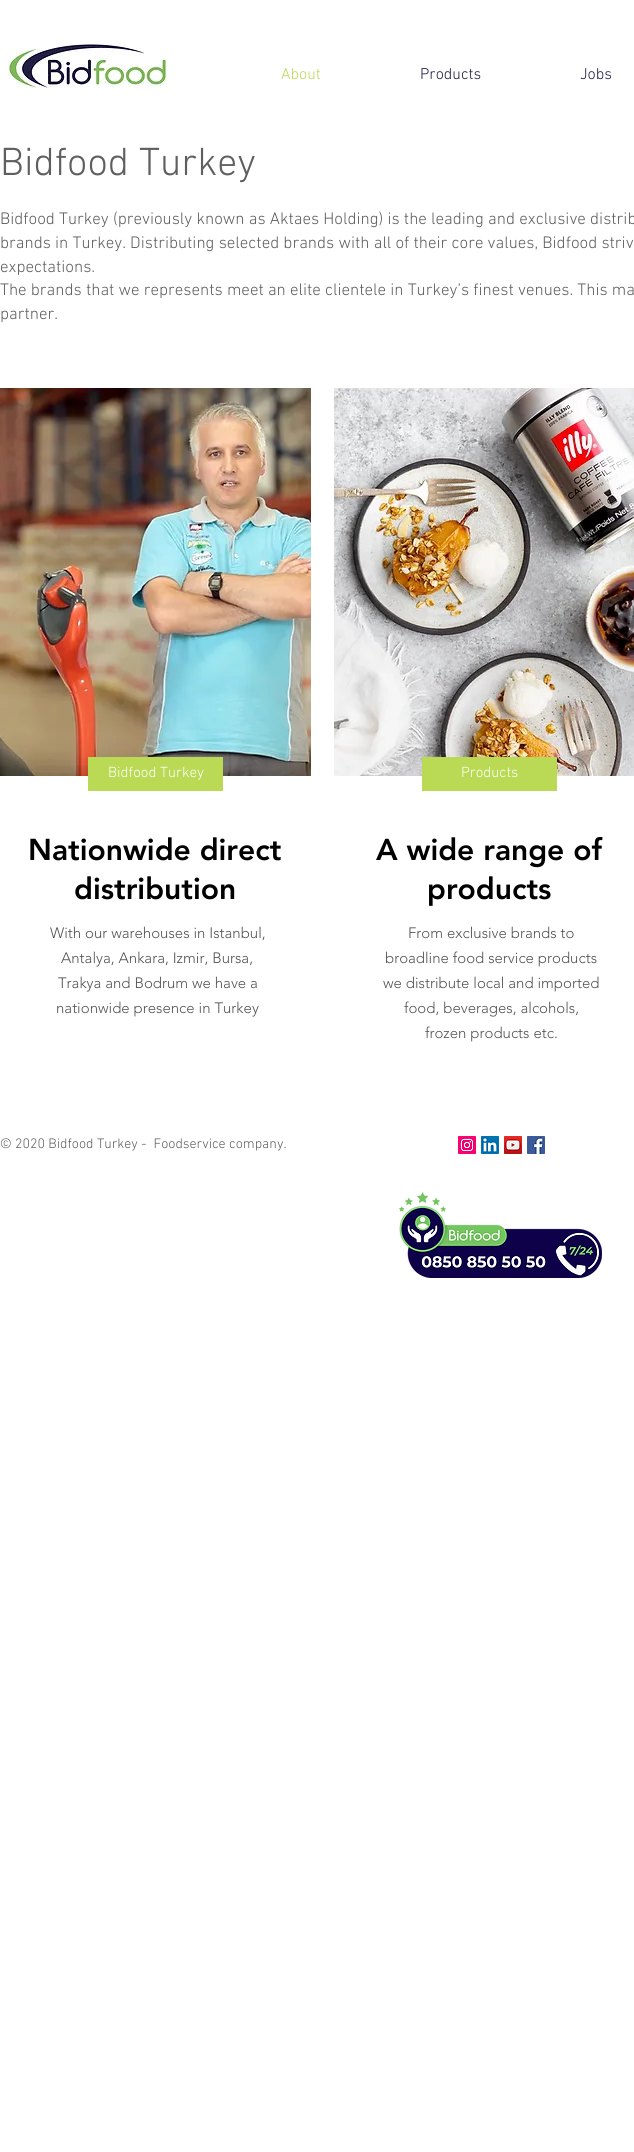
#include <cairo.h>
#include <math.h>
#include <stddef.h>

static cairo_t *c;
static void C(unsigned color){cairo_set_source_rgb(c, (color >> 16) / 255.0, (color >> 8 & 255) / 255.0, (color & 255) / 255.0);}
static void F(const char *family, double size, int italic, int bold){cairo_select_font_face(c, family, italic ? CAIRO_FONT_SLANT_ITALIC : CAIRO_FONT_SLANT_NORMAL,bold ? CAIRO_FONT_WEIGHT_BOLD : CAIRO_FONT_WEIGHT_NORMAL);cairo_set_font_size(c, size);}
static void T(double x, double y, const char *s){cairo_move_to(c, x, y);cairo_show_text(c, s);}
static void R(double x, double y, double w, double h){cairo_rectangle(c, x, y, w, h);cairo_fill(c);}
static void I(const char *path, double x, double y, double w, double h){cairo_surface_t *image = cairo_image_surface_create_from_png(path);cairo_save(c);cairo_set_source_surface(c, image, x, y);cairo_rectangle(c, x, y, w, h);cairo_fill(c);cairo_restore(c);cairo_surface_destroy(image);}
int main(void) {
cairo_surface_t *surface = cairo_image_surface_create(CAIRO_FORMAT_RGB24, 634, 2152);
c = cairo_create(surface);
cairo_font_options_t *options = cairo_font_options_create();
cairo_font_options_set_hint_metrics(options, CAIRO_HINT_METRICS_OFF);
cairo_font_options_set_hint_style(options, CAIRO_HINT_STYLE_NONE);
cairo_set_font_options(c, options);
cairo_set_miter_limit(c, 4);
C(0xffffff);
cairo_paint(c);
I("1.png",8,44,160,45);
F("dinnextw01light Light",16,0,0);
C(0xbada55);
T(281,79,"About");
C(0x231c45);
T(420,79,"Products");
T(580,79,"Jobs");
F("dinnextw01light Light",40,0,0);
C(0x605e5e);
T(0,175,"Bidfood Turkey");
F("dinnextw01light Light",17,0,0);
T(0,224,"Bidfood Turkey (previously known as Aktaes Holding) is the leading and exclusive distrib");
T(0,248,"brands in Turkey. Distributing selected brands with all of their core values, Bidfood striv");
T(0,272,"expectations.");
T(0,295,"The brands that we represents meet an elite clientele in Turkey’s finest venues. This ma");
T(0,319,"partner.");
I("2.png",0,388,311,388);
C(0xbada55);
R(88,757,135,34);
F("dinnextw01light Light",15,0,0);
C(0xffffff);
T(108,777,"Bidfood Turkey");
F("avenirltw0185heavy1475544 Black",30,0,0);
C(0x000000);
T(28,860,"Nationwide direct");
T(74,899,"distribution");
F("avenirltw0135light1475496 Light",15,0,0);
C(0x545454);
T(50,938,"With our warehouses in Istanbul,");
T(61,963,"Antalya, Ankara, Izmir, Bursa,");
T(58,988,"Trakya and Bodrum we have a");
T(56,1013,"nationwide presence in Turkey");
I("3.png",334,388,300,388);
C(0xbada55);
R(422,757,135,34);
F("dinnextw01light Light",15,0,0);
C(0xffffff);
T(461,777,"Products");
F("avenirltw0185heavy1475544 Black",30,0,0);
C(0x000000);
T(376,860,"A wide range of");
T(427,899,"products");
F("avenirltw0135light1475496 Light",15,0,0);
C(0x545454);
T(408,938,"From exclusive brands to");
T(385,963,"broadline food service products");
T(383,988,"we distribute local and imported");
T(404,1013,"food, beverages, alcohols,");
T(425,1038,"frozen products etc.");
F("dinnextw01light Light",14,0,0);
C(0x605e5e);
T(0,1148,"© 2020 Bidfood Turkey -  Foodservice company.");
I("4.png",458,1136,18,18);
I("5.png",481,1136,18,18);
I("6.png",504,1136,18,18);
I("7.png",527,1136,18,18);
I("8.png",399,1192,203,86);
cairo_surface_write_to_png(surface, "o.png");
cairo_font_options_destroy(options);
cairo_destroy(c);
cairo_surface_destroy(surface);
return 0;
}
